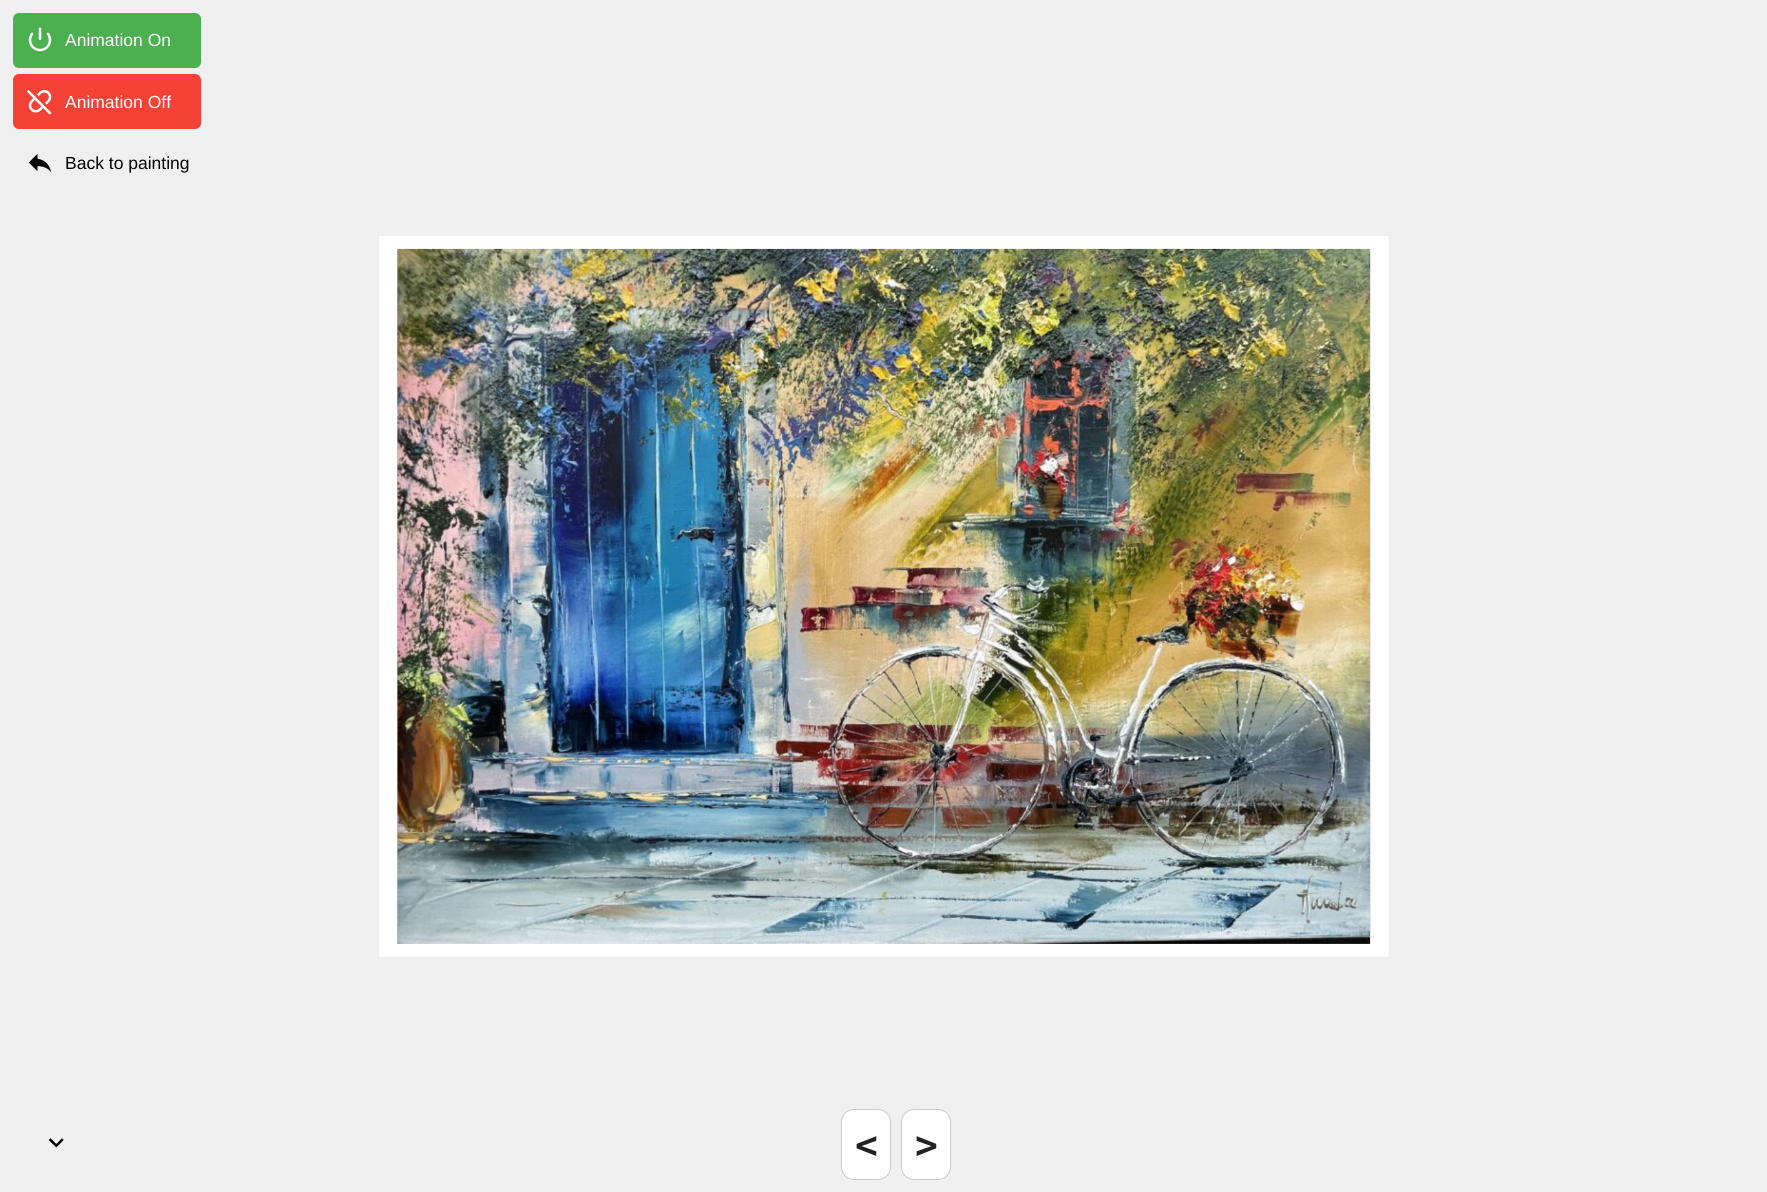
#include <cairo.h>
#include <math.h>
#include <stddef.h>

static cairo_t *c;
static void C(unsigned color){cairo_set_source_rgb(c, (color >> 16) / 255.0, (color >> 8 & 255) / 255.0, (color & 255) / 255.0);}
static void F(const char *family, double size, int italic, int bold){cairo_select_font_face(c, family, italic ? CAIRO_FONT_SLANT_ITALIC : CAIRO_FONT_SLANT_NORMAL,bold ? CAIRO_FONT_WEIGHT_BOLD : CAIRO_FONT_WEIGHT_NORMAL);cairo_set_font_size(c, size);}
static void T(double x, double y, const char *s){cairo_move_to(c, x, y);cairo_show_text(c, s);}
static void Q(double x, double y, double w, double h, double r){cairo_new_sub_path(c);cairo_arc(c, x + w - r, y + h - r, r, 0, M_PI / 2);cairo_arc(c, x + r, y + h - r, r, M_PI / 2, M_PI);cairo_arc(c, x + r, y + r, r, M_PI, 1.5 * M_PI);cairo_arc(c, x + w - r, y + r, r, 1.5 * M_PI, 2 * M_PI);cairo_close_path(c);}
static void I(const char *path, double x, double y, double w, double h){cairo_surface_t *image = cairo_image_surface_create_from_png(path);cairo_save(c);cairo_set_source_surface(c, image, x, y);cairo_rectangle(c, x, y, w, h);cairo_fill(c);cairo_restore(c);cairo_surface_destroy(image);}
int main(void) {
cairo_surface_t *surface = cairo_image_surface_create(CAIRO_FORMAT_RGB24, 1767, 1192);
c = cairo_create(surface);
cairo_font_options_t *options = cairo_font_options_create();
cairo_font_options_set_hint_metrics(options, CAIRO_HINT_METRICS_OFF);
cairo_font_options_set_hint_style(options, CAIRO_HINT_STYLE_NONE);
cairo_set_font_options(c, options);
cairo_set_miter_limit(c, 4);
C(0xf0f0f0);
cairo_paint(c);
C(0x4caf50);
Q(13,13,188,55,6);
cairo_fill(c);
I("1.png",28,27,24,25);
F("Liberation Sans",17.5,0,0);
C(0xffffff);
T(65,46,"Animation On");
C(0xf44336);
Q(13,74,188,55,6);
cairo_fill(c);
I("2.png",26,90,26,25);
C(0xffffff);
T(65,108,"Animation Off");
I("3.png",28,153,24,20);
C(0x000000);
T(65,169,"Back to painting");
I("4.png",379,236,1010,721);
I("5.png",48,1138,16,10);
C(0xffffff);
Q(841.5,1109.5,49,70,12.5);
cairo_fill_preserve(c);
C(0xcccccc);
cairo_set_line_width(c,1);
cairo_stroke(c);
F("DejaVu Sans Mono",38,0,1);
C(0x222222);
T(855,1158,"<");
C(0xffffff);
Q(901.5,1109.5,49,70,12.5);
cairo_fill_preserve(c);
C(0xcccccc);
cairo_stroke(c);
C(0x222222);
T(915,1158,">");
cairo_surface_write_to_png(surface, "o.png");
cairo_font_options_destroy(options);
cairo_destroy(c);
cairo_surface_destroy(surface);
return 0;
}
